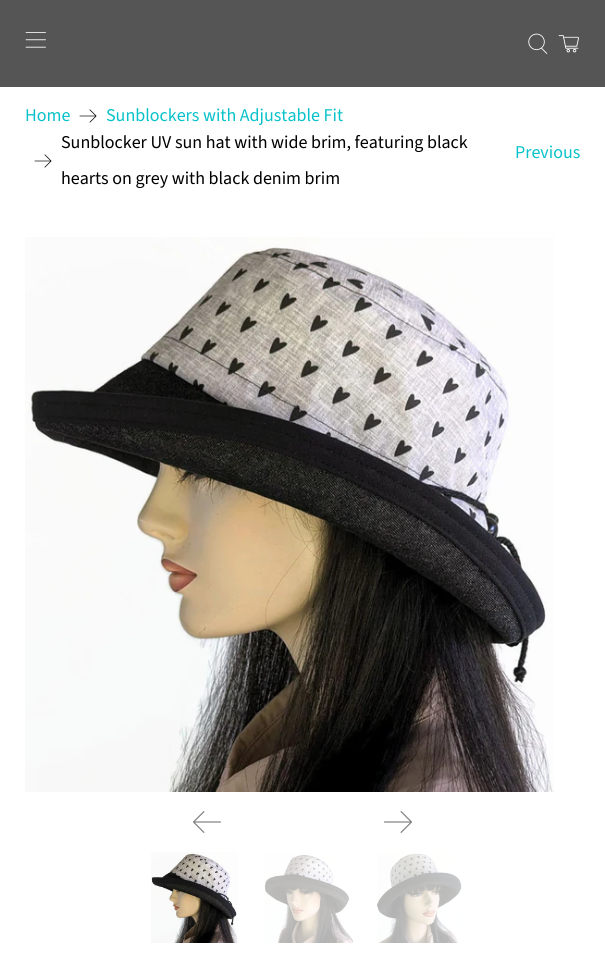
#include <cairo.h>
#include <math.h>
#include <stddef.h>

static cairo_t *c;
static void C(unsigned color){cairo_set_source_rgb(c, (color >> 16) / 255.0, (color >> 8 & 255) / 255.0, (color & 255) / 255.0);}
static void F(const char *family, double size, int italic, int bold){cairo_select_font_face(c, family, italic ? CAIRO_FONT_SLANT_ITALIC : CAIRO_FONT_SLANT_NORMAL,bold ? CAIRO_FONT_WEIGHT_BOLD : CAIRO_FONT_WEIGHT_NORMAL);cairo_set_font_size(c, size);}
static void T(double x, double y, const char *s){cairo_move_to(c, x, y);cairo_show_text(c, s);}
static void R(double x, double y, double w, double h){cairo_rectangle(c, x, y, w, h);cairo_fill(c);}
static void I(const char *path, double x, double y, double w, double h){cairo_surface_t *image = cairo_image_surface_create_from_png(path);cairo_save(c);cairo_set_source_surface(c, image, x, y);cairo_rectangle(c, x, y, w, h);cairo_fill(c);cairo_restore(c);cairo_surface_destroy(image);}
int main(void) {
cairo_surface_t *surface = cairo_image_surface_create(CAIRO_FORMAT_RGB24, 605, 971);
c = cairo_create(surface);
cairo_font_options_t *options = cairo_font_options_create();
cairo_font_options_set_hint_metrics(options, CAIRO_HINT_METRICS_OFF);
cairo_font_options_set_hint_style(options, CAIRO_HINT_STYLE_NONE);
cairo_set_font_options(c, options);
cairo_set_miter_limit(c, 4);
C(0xffffff);
cairo_paint(c);
C(0x555555);
R(0,0,605,87);
I("1.png",25,32,21,16);
I("2.png",528,33,20,21);
I("3.png",558,35,21,18);
F("Source Sans Pro",18,0,0);
C(0x07c2ca);
T(25,121,"Home");
I("4.png",79,109,18,14);
T(106,121,"Sunblockers with Adjustable Fit");
C(0x000000);
T(61,148,"Sunblocker UV sun hat with wide brim, featuring black");
I("4.png",34,154,18,14);
T(61,184,"hearts on grey with black denim brim");
C(0x07c2ca);
T(515,158,"Previous");
I("5.png",25,237,529,555);
I("6.png",193,811,28,22);
I("7.png",384,811,28,22);
I("8.png",151,852,87,91);
I("9.png",264,854,89,89);
I("10.png",377,853,85,90);
cairo_surface_write_to_png(surface, "o.png");
cairo_font_options_destroy(options);
cairo_destroy(c);
cairo_surface_destroy(surface);
return 0;
}
